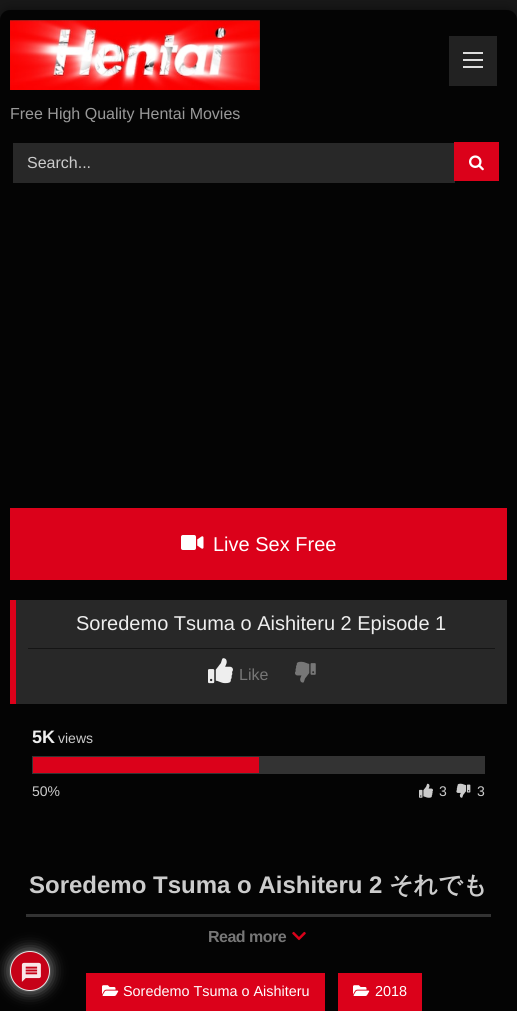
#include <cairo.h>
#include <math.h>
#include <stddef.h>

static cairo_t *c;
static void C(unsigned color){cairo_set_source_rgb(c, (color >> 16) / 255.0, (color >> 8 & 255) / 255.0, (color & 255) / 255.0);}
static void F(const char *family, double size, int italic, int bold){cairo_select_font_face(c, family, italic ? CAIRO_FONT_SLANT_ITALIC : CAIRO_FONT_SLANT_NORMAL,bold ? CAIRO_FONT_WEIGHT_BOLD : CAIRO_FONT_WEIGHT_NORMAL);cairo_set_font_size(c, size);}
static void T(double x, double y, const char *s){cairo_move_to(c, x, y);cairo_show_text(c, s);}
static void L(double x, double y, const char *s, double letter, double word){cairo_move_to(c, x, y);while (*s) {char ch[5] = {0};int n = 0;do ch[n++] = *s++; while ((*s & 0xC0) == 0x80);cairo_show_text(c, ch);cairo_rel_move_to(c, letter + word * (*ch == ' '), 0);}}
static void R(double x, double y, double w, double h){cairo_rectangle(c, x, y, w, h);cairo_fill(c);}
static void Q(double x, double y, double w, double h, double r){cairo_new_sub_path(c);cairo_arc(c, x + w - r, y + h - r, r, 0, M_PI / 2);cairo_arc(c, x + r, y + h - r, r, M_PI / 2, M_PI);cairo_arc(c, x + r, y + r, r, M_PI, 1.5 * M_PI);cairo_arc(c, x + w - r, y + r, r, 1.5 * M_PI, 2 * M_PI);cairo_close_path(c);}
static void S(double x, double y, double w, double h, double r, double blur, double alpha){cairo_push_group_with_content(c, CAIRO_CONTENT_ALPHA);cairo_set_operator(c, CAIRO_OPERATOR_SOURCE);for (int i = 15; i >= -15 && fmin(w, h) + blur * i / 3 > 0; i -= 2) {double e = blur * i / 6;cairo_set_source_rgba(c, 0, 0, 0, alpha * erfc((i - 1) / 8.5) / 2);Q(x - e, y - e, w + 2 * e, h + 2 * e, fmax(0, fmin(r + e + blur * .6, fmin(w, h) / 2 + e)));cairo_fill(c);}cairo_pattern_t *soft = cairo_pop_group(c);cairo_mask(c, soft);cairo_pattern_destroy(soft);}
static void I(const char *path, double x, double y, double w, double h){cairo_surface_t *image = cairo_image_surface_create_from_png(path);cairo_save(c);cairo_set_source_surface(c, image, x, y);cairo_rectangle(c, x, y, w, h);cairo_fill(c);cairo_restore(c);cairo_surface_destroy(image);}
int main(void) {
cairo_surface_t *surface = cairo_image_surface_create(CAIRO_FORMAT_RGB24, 517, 1011);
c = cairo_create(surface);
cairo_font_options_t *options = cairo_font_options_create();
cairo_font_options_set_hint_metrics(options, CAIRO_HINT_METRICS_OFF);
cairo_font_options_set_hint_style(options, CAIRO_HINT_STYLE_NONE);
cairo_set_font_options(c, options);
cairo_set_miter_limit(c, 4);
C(0x181818);
cairo_paint(c);
C(0x000000);
S(0,10,517,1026,10,5,.5);
C(0x040404);
Q(0,10,517,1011,10);
cairo_fill(c);
C(0x222222);
R(449,36,48,50);
C(0xdddddd);
R(463,52,20,2);
R(463,59,20,2);
R(463,66,20,2);
I("1.png",10,20,250,70);
F("Liberation Sans",16,0,0);
C(0x999999);
T(10,119,"Free High Quality Hentai Movies");
C(0x282828);
R(13,143,442,40);
C(0xcccccc);
T(27,168,"Search...");
C(0xdb011a);
R(454,142,45,39);
I("2.png",469,155,15,16);
R(10,508,497,72);
I("3.png",181,535,23,15);
F("Liberation Sans",20,0,0);
C(0xffffff);
T(213,551,"Live Sex Free");
C(0x282828);
R(16,600,491,104);
C(0xdb011a);
R(10,600,6,104);
C(0x151515);
R(28,648,467,1);
C(0xeeeeee);
T(76,630,"Soredemo Tsuma o Aishiteru 2 Episode 1");
I("4.png",208,658,25,26);
F("Liberation Sans",16,0,0);
C(0x777777);
T(239,680,"Like");
I("5.png",295,661,21,22);
F("Liberation Sans",18,0,1);
C(0xeeeeee);
T(32,743,"5K");
F("Liberation Sans",14,0,0);
C(0xcccccc);
T(58,743,"views");
C(0x333333);
R(32,756,453,18);
C(0xdb011a);
R(33,757,226,16);
C(0xcccccc);
T(32,796,"50%");
I("6.png",419,783,14,15);
T(439,796,"3");
I("7.png",456,783,15,15);
T(477,796,"3");
F("Liberation Sans",24,0,1);
T(29,893,"Soredemo Tsuma o Aishiteru 2");
F("WenQuanYi Zen Hei",24,0,1);
T(389,893,"それでも");
C(0x333333);
R(26,914,465,3);
F("Liberation Sans",16,0,1);
C(0x777777);
L(208,942,"Read more",-.5,0);
I("8.png",292,931,14,10);
C(0xdb011a);
R(86,973,239,38);
I("9.png",102,985,17,11);
F("Liberation Sans",14.4,0,0);
C(0xffffff);
T(123,996,"Soredemo Tsuma o Aishiteru");
C(0xdb011a);
R(338,973,84,38);
I("9.png",353,985,17,11);
C(0xffffff);
T(375,996,"2018");
C(0x999999);
S(10,951,40,40,20,7.5,1);
C(0xc60118);
cairo_arc(c,30,971,19.5,0,2 * M_PI);
cairo_fill_preserve(c);
C(0xe6e6e6);
cairo_set_line_width(c,1);
cairo_stroke(c);
I("10.png",21,962,20,20);
cairo_surface_write_to_png(surface, "o.png");
cairo_font_options_destroy(options);
cairo_destroy(c);
cairo_surface_destroy(surface);
return 0;
}
